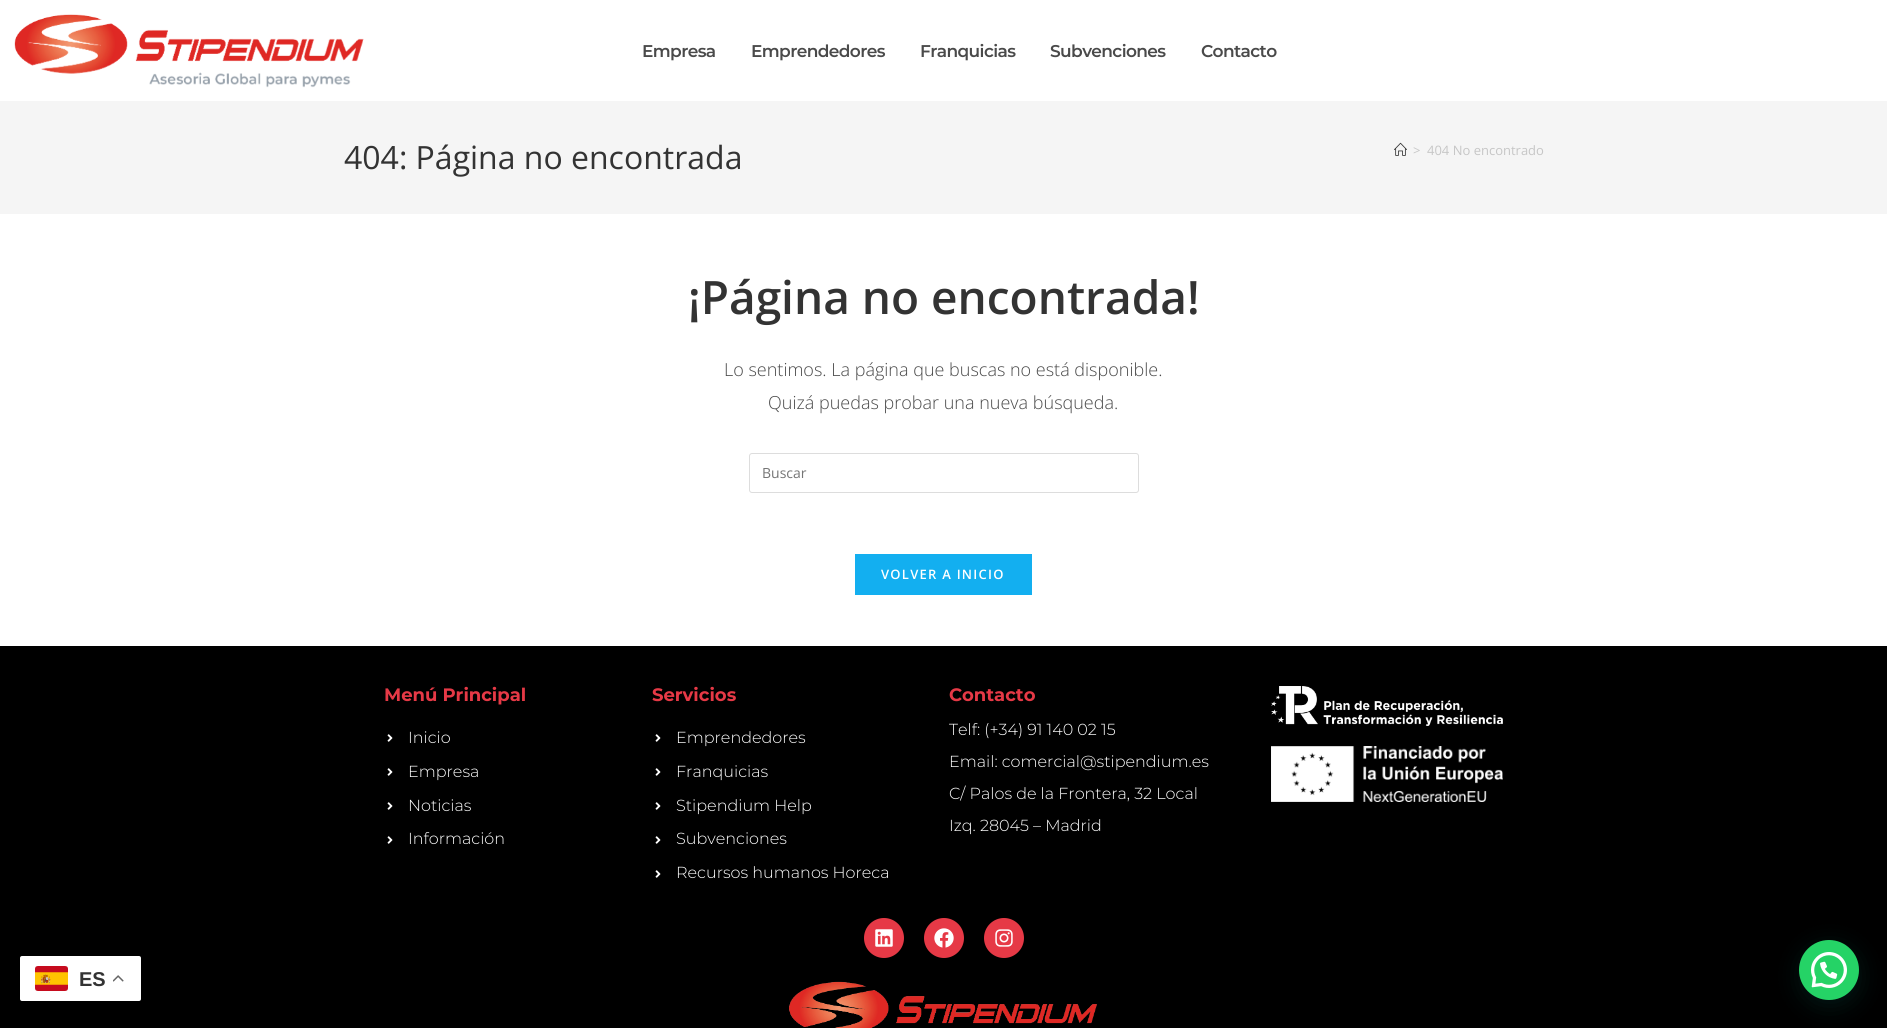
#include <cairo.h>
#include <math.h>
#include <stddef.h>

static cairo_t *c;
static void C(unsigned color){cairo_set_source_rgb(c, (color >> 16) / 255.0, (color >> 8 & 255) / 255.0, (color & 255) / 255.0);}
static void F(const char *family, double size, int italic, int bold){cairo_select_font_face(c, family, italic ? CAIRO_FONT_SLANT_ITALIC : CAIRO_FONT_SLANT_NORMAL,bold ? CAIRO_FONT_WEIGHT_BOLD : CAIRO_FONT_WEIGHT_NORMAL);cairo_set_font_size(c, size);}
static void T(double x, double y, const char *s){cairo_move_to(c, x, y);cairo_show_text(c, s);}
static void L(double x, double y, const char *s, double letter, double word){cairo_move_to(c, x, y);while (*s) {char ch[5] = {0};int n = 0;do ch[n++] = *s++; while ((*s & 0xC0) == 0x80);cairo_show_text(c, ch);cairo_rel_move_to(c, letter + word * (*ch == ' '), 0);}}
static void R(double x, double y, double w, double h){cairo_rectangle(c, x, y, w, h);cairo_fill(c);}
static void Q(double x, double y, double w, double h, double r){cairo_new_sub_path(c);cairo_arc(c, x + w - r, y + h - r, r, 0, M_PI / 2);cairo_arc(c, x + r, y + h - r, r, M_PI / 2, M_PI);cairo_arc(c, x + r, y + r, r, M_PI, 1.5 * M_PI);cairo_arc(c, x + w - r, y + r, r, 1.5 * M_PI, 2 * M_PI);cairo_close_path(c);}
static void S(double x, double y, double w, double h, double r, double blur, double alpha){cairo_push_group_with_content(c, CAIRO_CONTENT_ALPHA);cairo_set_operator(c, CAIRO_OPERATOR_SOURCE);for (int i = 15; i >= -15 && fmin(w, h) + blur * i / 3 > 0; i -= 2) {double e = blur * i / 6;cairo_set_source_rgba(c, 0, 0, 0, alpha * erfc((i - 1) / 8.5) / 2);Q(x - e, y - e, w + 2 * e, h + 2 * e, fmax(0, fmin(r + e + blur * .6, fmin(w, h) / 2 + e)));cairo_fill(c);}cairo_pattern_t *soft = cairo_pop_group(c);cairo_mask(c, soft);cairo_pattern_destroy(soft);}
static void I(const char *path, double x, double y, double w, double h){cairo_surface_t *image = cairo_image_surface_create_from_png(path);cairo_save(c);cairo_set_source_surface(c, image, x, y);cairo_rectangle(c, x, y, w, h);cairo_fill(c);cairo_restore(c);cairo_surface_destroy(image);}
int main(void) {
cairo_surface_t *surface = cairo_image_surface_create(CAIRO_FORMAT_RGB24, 1887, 1028);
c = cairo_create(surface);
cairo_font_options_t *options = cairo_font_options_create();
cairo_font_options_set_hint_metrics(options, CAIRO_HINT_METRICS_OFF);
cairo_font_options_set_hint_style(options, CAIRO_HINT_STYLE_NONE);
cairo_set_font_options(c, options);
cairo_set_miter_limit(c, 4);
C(0xffffff);
cairo_paint(c);
I("1.png",14,14,350,74);
F("Montserrat SemiBold",17,0,0);
C(0x4a4a4a);
L(642,57,"Empresa",-.6,0);
L(751,57,"Emprendedores",-.6,0);
L(920,57,"Franquicias",-.6,0);
L(1050,57,"Subvenciones",-.6,0);
L(1201,57,"Contacto",-.6,0);
C(0xf5f5f5);
R(0,101,1887,113);
F("Open Sans",32,0,0);
C(0x333333);
T(344,169,"404: Página no encontrada");
I("2.png",1394,142,13,14);
F("Open Sans",13,0,0);
C(0xc6c6c6);
T(1413,155,">");
T(1427,155,"404 No encontrado");
F("Open Sans SemiBold",46,0,0);
C(0x333333);
T(688,314,"¡Página no encontrada!");
F("Open Sans Light",18,0,0);
C(0x4a4a4a);
T(724,376,"Lo sentimos. La página que buscas no está disponible.");
T(768,409,"Quizá puedas probar una nueva búsqueda.");
Q(749.5,453.5,389,39,2.5);
C(0xdddddd);
cairo_set_line_width(c,1);
cairo_stroke(c);
F("Open Sans",14,0,0);
C(0x757575);
T(762,478,"Buscar");
C(0x13aff0);
R(855,554,177,41);
F("Open Sans SemiBold",13,0,0);
C(0xffffff);
L(881,579,"VOLVER A INICIO",1.25,0);
C(0x000000);
R(0,646,1887,382);
F("Montserrat",18,0,1);
C(0xe63946);
T(384,701,"Menú Principal");
I("3.png",387,734,6,8);
F("Montserrat Light",16,0,0);
C(0xffffff);
T(408,743,"Inicio");
I("3.png",387,768,6,8);
T(408,777,"Empresa");
I("3.png",387,802,6,8);
T(408,811,"Noticias");
I("3.png",387,836,6,8);
T(408,844,"Información");
F("Montserrat",18,0,1);
C(0xe63946);
T(652,701,"Servicios");
I("3.png",655,734,6,8);
F("Montserrat Light",16,0,0);
C(0xffffff);
T(676,743,"Emprendedores");
I("3.png",655,768,6,8);
T(676,777,"Franquicias");
I("3.png",655,802,6,8);
T(676,811,"Stipendium Help");
I("3.png",655,836,6,8);
T(676,844,"Subvenciones");
I("3.png",655,870,6,8);
T(676,878,"Recursos humanos Horeca");
F("Montserrat",18,0,1);
C(0xe63946);
T(949,701,"Contacto");
F("Montserrat Light",16,0,0);
C(0xffffff);
T(949,735,"Telf: (+34) 91 140 02 15");
T(949,767,"Email: comercial@stipendium.es");
T(949,799,"C/ Palos de la Frontera, 32 Local");
T(949,831,"Izq. 28045 – Madrid");
I("4.png",1271,686,232,40);
I("5.png",1271,746,232,56);
C(0xe63946);
cairo_arc(c,884,938,20,0,2 * M_PI);
cairo_fill(c);
I("6.png",875,929,18,18);
cairo_arc(c,944,938,20,0,2 * M_PI);
cairo_fill(c);
I("7.png",934,928,20,20);
cairo_arc(c,1004,938,20,0,2 * M_PI);
cairo_fill(c);
I("8.png",995,929,18,18);
I("9.png",789,981,308,47);
C(0xffffff);
Q(20,956,121,45,2);
cairo_fill(c);
I("10.png",35,966,33,25);
F("Liberation Sans",20,0,1);
C(0x333333);
T(79,986,"ES");
I("11.png",113,975,11,7);
C(0x075e54);
S(1800,946,60,60,30,12,.24);
C(0x25d366);
cairo_arc(c,1829,970,30,0,2 * M_PI);
cairo_fill(c);
I("12.png",1811,952,36,36);
cairo_surface_write_to_png(surface, "o.png");
cairo_font_options_destroy(options);
cairo_destroy(c);
cairo_surface_destroy(surface);
return 0;
}
